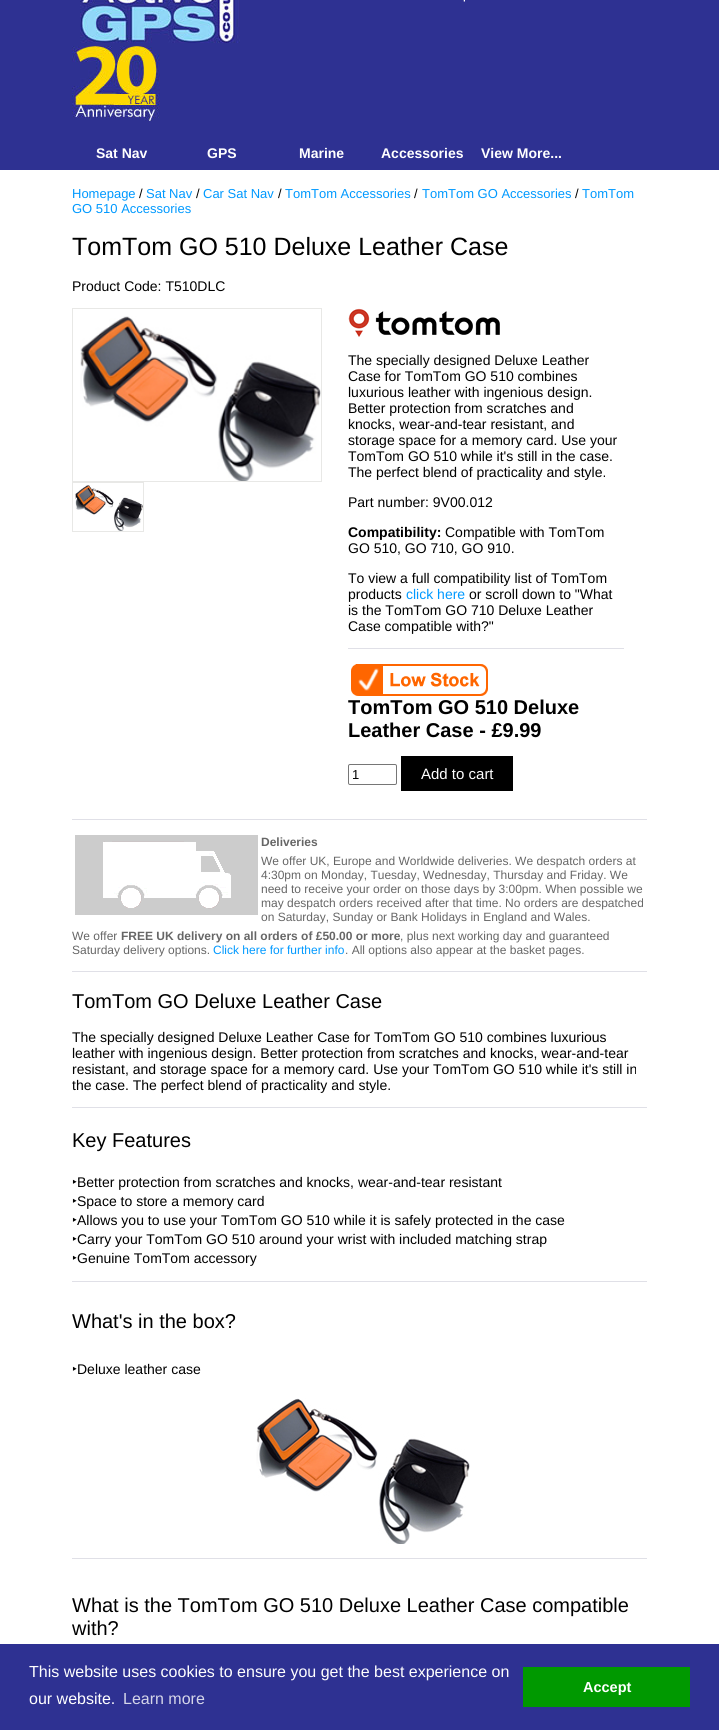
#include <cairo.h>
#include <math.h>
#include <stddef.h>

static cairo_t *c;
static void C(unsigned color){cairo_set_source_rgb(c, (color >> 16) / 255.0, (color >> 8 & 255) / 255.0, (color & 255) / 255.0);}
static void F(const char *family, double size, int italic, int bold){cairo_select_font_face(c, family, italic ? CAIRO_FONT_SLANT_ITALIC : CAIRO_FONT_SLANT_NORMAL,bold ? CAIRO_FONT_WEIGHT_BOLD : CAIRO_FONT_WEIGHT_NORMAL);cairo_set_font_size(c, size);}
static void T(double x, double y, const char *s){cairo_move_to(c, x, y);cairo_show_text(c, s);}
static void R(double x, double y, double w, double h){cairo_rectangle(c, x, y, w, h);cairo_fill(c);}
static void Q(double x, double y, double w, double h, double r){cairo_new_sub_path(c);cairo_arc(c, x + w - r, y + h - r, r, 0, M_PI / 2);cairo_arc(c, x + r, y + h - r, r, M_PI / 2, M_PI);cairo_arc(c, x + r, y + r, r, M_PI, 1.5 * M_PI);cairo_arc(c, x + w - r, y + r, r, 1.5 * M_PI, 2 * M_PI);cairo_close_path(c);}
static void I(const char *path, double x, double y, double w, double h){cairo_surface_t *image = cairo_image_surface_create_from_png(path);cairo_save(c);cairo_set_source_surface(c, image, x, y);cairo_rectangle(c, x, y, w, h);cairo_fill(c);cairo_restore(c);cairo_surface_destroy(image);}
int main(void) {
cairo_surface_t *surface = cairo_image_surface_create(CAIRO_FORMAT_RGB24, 719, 1730);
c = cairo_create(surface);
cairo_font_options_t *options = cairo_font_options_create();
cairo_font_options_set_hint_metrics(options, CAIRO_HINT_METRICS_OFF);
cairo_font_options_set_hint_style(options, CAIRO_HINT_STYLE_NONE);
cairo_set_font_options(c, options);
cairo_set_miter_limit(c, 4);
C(0xffffff);
cairo_paint(c);
C(0x2e3192);
R(0,0,719,170);
I("1.png",80,0,160,43);
I("2.png",463,0,2,2);
I("3.png",72,46,88,75);
F("Liberation Sans",14,0,1);
C(0xffffff);
T(96,158,"Sat Nav");
T(207,158,"GPS");
T(299,158,"Marine");
T(381,158,"Accessories");
T(481,158,"View More...");
F("Liberation Sans",13,0,0);
C(0x0099ff);
T(72,198,"Homepage");
C(0x000000);
T(139,198,"/");
C(0x0099ff);
T(146,198,"Sat Nav");
C(0x000000);
T(196,198,"/");
C(0x0099ff);
T(203,198,"Car Sat Nav");
C(0x000000);
T(278,198,"/");
C(0x0099ff);
T(285,198,"TomTom Accessories");
C(0x000000);
T(414,198,"/");
C(0x0099ff);
T(422,198,"TomTom GO Accessories");
C(0x000000);
T(575,198,"/");
C(0x0099ff);
T(582,198,"TomTom");
T(72,213,"GO 510 Accessories");
F("Liberation Sans",25,0,0);
C(0x000000);
T(72,255,"TomTom GO 510 Deluxe Leather Case");
F("Liberation Sans",14,0,0);
T(72,291,"Product Code: T510DLC");
cairo_rectangle(c,72.5,308.5,249,173);
C(0xe8e8e6);
cairo_set_line_width(c,1);
cairo_stroke(c);
I("4.png",80,316,241,165);
cairo_rectangle(c,72.5,482.5,71,49);
cairo_stroke(c);
I("5.png",75,485,68,46);
I("6.png",348,308,152,29);
C(0x000000);
T(348,365,"The specially designed Deluxe Leather");
T(348,381,"Case for TomTom GO 510 combines");
T(348,397,"luxurious leather with ingenious design.");
T(348,413,"Better protection from scratches and");
T(348,429,"knocks, wear-and-tear resistant, and");
T(348,445,"storage space for a memory card. Use your");
T(348,461,"TomTom GO 510 while it's still in the case.");
T(348,477,"The perfect blend of practicality and style.");
T(348,507,"Part number: 9V00.012");
F("Liberation Sans",14,0,1);
T(348,537,"Compatibility:");
F("Liberation Sans",14,0,0);
T(445,537,"Compatible with TomTom");
T(348,553,"GO 510, GO 710, GO 910.");
T(348,583,"To view a full compatibility list of TomTom");
T(348,599,"products");
C(0x0099ff);
T(406,599,"click here");
C(0x000000);
T(469,599,"or scroll down to \"What");
T(348,615,"is the TomTom GO 710 Deluxe Leather");
T(348,631,"Case compatible with?\"");
C(0xe0e0e7);
R(348,648,276,1);
I("7.png",351,664,137,32);
F("Liberation Sans",20,0,1);
C(0x000000);
T(348,714,"TomTom GO 510 Deluxe");
T(348,737,"Leather Case - £9.99");
Q(348.5,764.5,48,20,1.5);
C(0x767676);
cairo_stroke(c);
F("Liberation Sans",13,0,0);
C(0x000000);
T(352,779,"1");
R(401,756,112,35);
F("Liberation Sans",15,0,0);
C(0xffffff);
T(421,779,"Add to cart");
C(0xe0e0e7);
R(72,819,575,1);
I("8.png",75,835,183,80);
F("Liberation Sans",12,0,1);
C(0x666666);
T(261,846,"Deliveries");
F("Liberation Sans",12,0,0);
T(261,865,"We offer UK, Europe and Worldwide deliveries. We despatch orders at");
T(261,879,"4:30pm on Monday, Tuesday, Wednesday, Thursday and Friday. We");
T(261,893,"need to receive your order on those days by 3:00pm. When possible we");
T(261,907,"may despatch orders received after that time. No orders are despatched");
T(261,921,"on Saturday, Sunday or Bank Holidays in England and Wales.");
T(72,940,"We offer");
F("Liberation Sans",12,0,1);
T(121,940,"FREE UK delivery on all orders of £50.00 or more");
F("Liberation Sans",12,0,0);
T(400,940,", plus next working day and guaranteed");
T(72,954,"Saturday delivery options.");
C(0x0099ff);
T(213,954,"Click here for further info");
C(0x666666);
T(345,954,". All options also appear at the basket pages.");
C(0xe0e0e7);
R(72,971,575,1);
F("Liberation Sans",20,0,0);
C(0x000000);
T(72,1008,"TomTom GO Deluxe Leather Case");
F("Liberation Sans",14,0,0);
T(72,1042,"The specially designed Deluxe Leather Case for TomTom GO 510 combines luxurious");
T(72,1058,"leather with ingenious design. Better protection from scratches and knocks, wear-and-tear");
T(72,1074,"resistant, and storage space for a memory card. Use your TomTom GO 510 while it's still in");
T(72,1090,"the case. The perfect blend of practicality and style.");
C(0xe0e0e7);
R(72,1107,575,1);
F("Liberation Sans",20,0,0);
C(0x000000);
T(72,1147,"Key Features");
F("Noto Sans",14,0,0);
T(72,1187,"‣");
F("Liberation Sans",14,0,0);
T(77,1187,"Better protection from scratches and knocks, wear-and-tear resistant");
F("Noto Sans",14,0,0);
T(72,1206,"‣");
F("Liberation Sans",14,0,0);
T(77,1206,"Space to store a memory card");
F("Noto Sans",14,0,0);
T(72,1225,"‣");
F("Liberation Sans",14,0,0);
T(77,1225,"Allows you to use your TomTom GO 510 while it is safely protected in the case");
F("Noto Sans",14,0,0);
T(72,1244,"‣");
F("Liberation Sans",14,0,0);
T(77,1244,"Carry your TomTom GO 510 around your wrist with included matching strap");
F("Noto Sans",14,0,0);
T(72,1263,"‣");
F("Liberation Sans",14,0,0);
T(77,1263,"Genuine TomTom accessory");
C(0xe0e0e7);
R(72,1281,575,1);
F("Liberation Sans",20,0,0);
C(0x000000);
T(72,1328,"What's in the box?");
F("Noto Sans",14,0,0);
T(72,1374,"‣");
F("Liberation Sans",14,0,0);
T(77,1374,"Deluxe leather case");
I("9.png",256,1398,214,146);
C(0xe0e0e7);
R(72,1558,575,1);
F("Liberation Sans",20,0,0);
C(0x000000);
T(72,1612,"What is the TomTom GO 510 Deluxe Leather Case compatible");
T(72,1635,"with?");
C(0x2e3192);
R(0,1644,719,86);
F("Liberation Sans",16,0,0);
C(0xffffff);
T(29,1677,"This website uses cookies to ensure you get the best experience on");
T(29,1704,"our website.");
C(0xd5d6e9);
T(123,1704,"Learn more");
C(0x009900);
R(523,1667,167,40);
F("Liberation Sans",14.5,0,1);
C(0xffffff);
T(583,1692,"Accept");
cairo_surface_write_to_png(surface, "o.png");
cairo_font_options_destroy(options);
cairo_destroy(c);
cairo_surface_destroy(surface);
return 0;
}
